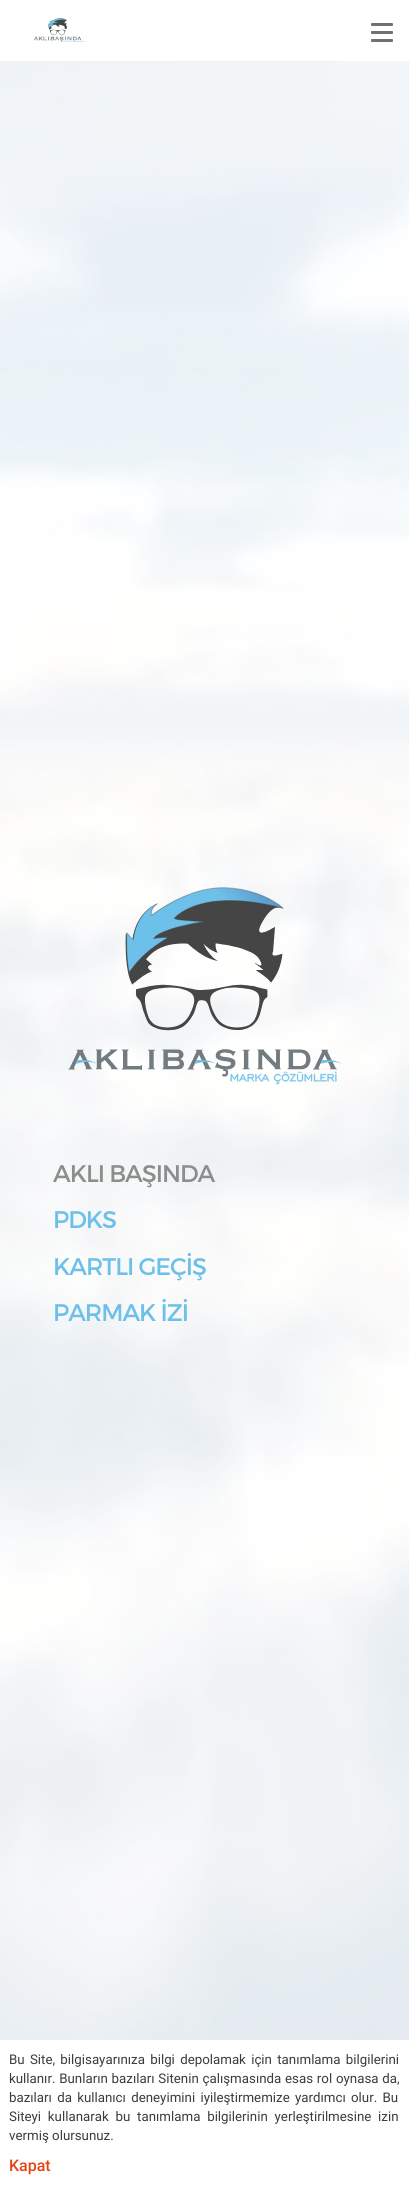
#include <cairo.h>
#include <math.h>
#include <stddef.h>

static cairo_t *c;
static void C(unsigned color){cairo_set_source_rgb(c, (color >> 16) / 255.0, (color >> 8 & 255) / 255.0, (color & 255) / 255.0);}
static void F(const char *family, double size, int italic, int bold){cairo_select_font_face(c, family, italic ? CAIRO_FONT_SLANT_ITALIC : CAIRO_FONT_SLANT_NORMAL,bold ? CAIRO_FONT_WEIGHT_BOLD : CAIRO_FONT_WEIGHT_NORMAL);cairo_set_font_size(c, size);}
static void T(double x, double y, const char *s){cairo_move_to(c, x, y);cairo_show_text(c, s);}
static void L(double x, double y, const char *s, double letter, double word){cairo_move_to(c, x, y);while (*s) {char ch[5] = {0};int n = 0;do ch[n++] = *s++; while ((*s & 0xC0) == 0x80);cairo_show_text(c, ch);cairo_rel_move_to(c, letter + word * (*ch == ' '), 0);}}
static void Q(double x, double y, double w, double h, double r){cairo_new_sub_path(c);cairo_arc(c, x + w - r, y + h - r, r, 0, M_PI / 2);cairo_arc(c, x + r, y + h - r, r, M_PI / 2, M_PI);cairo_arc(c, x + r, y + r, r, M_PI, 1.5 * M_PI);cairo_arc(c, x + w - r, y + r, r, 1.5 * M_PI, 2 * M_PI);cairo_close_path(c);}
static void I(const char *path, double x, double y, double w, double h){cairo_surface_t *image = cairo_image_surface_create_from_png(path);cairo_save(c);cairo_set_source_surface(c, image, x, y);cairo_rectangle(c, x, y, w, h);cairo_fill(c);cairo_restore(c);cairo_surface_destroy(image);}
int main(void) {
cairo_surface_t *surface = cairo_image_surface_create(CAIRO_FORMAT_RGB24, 409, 2188);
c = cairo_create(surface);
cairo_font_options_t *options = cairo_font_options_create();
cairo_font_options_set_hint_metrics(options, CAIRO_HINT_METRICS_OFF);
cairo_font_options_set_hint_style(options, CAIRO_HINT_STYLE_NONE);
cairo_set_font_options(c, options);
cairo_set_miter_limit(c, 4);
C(0xffffff);
cairo_paint(c);
I("1.png",34,18,51,24);
C(0x717170);
Q(371,23,22,3,1);
cairo_fill(c);
Q(371,31,22,3,1);
cairo_fill(c);
Q(371,39,22,3,1);
cairo_fill(c);
I("2.png",0,61,409,1979);
I("3.png",68,887,273,198);
F("Montserrat",24,0,0);
C(0x8d8d8c);
L(53,1182,"AKLI BAŞINDA",-1,0);
C(0x6cc0e9);
L(53,1228,"PDKS",-1,0);
L(53,1275,"KARTLI GEÇİŞ",-1,0);
L(53,1321,"PARMAK İZİ",-1,0);
F("Roboto",13.3,0,0);
C(0x3c3c3b);
L(9,2064,"Bu Site, bilgisayarınıza bilgi depolamak için tanımlama bilgilerini",0,2);
L(9,2083,"kullanır. Bunların bazıları Sitenin çalışmasında esas rol oynasa da,",0,.5);
L(9,2102,"bazıları da kullanıcı deneyimini iyileştirmemize yardımcı olur. Bu",0,2);
L(9,2121,"Siteyi kullanarak bu tanımlama bilgilerinin yerleştirilmesine izin",0,3.5);
T(9,2140,"vermiş olursunuz.");
F("Roboto Medium",16,0,0);
C(0xe64510);
T(9,2171,"Kapat");
cairo_surface_write_to_png(surface, "o.png");
cairo_font_options_destroy(options);
cairo_destroy(c);
cairo_surface_destroy(surface);
return 0;
}
